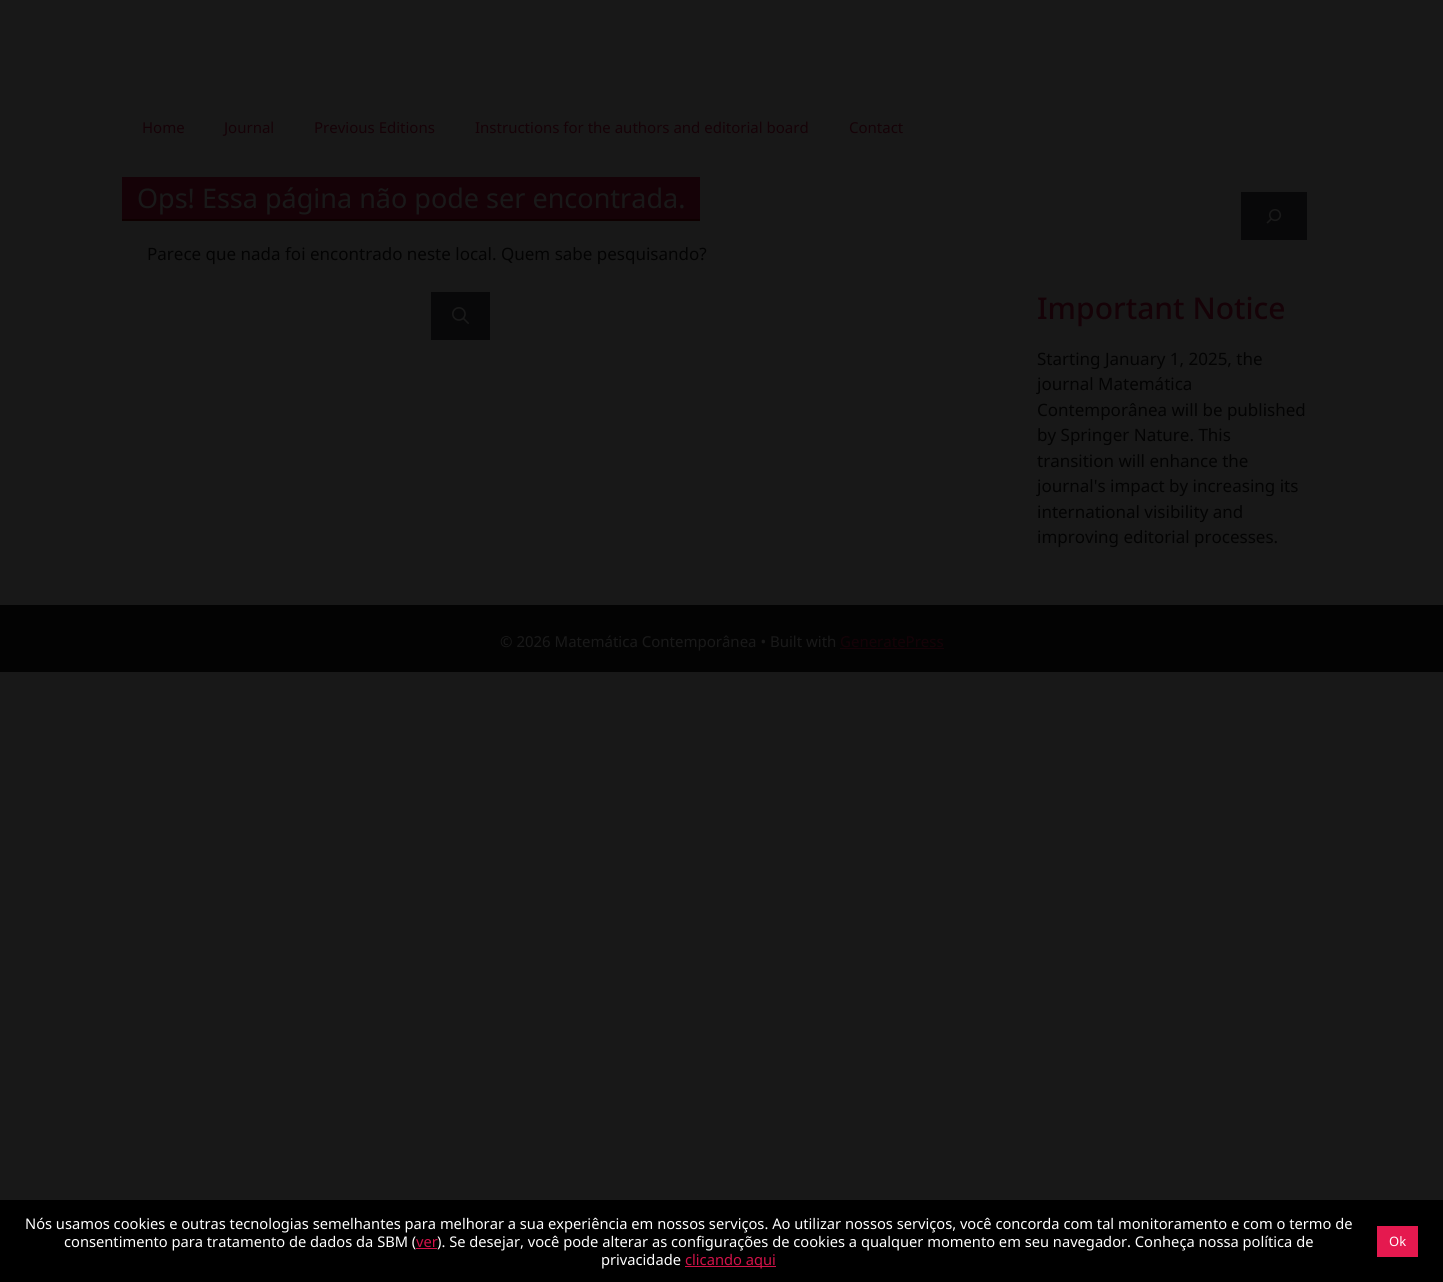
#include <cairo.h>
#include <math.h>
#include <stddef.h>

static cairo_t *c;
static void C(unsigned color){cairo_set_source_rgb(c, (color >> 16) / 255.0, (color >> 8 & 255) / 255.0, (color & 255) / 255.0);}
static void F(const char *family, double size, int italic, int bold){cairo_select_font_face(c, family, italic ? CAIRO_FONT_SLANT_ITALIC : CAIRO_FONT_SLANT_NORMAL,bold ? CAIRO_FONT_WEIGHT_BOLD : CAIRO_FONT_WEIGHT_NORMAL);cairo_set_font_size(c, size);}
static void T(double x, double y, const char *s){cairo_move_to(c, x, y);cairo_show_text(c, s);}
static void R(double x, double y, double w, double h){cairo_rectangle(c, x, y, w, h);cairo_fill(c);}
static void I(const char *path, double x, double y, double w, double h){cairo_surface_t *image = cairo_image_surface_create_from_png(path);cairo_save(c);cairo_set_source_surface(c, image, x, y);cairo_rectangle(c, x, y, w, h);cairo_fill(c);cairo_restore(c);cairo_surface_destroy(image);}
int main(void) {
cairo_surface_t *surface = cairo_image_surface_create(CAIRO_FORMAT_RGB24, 1443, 1282);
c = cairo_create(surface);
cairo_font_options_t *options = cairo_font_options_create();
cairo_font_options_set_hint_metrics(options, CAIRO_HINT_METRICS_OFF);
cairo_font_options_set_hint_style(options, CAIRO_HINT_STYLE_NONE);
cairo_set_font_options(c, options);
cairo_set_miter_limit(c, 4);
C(0x181818);
cairo_paint(c);
F("Noto Sans",15,0,0);
C(0x150207);
T(142,133,"Home");
T(224,133,"Journal");
T(314,133,"Previous Editions");
T(475,133,"Instructions for the authors and editorial board");
T(849,133,"Contact");
R(122,177,578,42);
C(0x0e0000);
R(122,219,578,2);
F("Noto Sans",27,0,0);
C(0x191919);
T(137,208,"Ops! Essa página não pode ser encontrada.");
F("Noto Sans",17,0,0);
C(0x030303);
T(147,260,"Parece que nada foi encontrado neste local. Quem sabe pesquisando?");
C(0x080809);
R(431,292,59,48);
I("1.png",452,307,17,17);
R(1241,192,66,48);
I("2.png",1266,209,16,15);
F("Noto Sans Medium",30,0,0);
C(0x150207);
T(1037,319,"Important Notice");
F("Noto Sans",17,0,0);
C(0x030303);
T(1037,365,"Starting January 1, 2025, the");
T(1037,390,"journal Matemática");
T(1037,416,"Contemporânea will be published");
T(1037,441,"by Springer Nature. This");
T(1037,467,"transition will enhance the");
T(1037,492,"journal's impact by increasing its");
T(1037,518,"international visibility and");
T(1037,543,"improving editorial processes.");
R(0,605,1443,67);
F("Noto Sans",15,0,0);
C(0x191919);
T(500,647,"© 2026 Matemática Contemporânea • Built with");
C(0x150207);
T(840,647,"GeneratePress");
R(840,648,104,1);
C(0x000000);
R(0,1200,1443,82);
F("Noto Sans",14.67,0,0);
C(0xffffff);
T(25,1229,"Nós usamos cookies e outras tecnologias semelhantes para melhorar a sua experiência em nossos serviços. Ao utilizar nossos serviços, você concorda com tal monitoramento e com o termo de");
T(64,1247,"consentimento para tratamento de dados da SBM (");
C(0xd21249);
T(416,1247,"ver");
R(416,1248,21,1);
C(0xffffff);
T(437,1247,"). Se desejar, você pode alterar as configurações de cookies a qualquer momento em seu navegador. Conheça nossa política de");
T(601,1265,"privacidade");
C(0xd21249);
R(685,1266,91,1);
T(685,1265,"clicando aqui");
C(0xe5194f);
R(1377,1226,41,31);
F("Noto Sans",13,0,0);
C(0xffffff);
T(1389,1246,"Ok");
cairo_surface_write_to_png(surface, "o.png");
cairo_font_options_destroy(options);
cairo_destroy(c);
cairo_surface_destroy(surface);
return 0;
}
